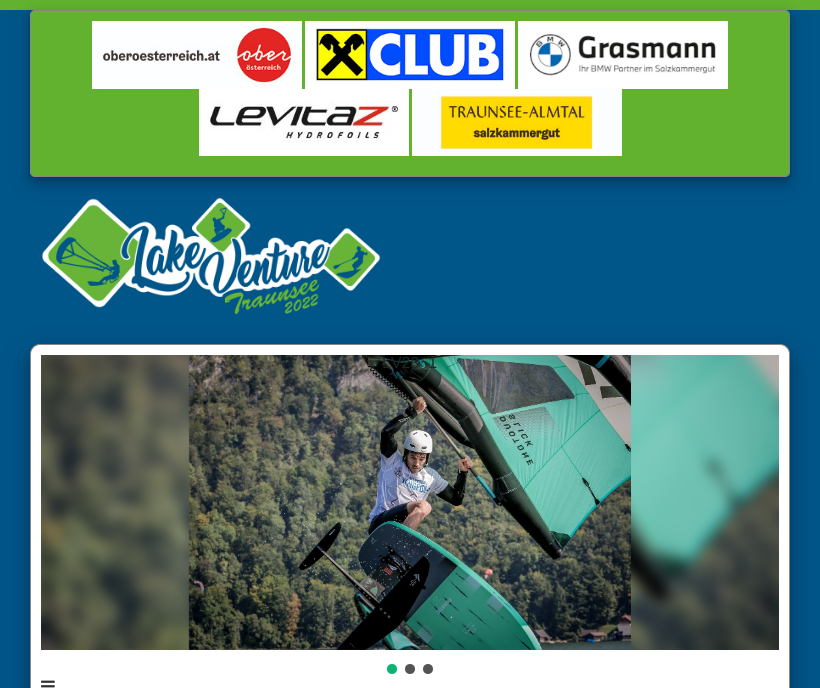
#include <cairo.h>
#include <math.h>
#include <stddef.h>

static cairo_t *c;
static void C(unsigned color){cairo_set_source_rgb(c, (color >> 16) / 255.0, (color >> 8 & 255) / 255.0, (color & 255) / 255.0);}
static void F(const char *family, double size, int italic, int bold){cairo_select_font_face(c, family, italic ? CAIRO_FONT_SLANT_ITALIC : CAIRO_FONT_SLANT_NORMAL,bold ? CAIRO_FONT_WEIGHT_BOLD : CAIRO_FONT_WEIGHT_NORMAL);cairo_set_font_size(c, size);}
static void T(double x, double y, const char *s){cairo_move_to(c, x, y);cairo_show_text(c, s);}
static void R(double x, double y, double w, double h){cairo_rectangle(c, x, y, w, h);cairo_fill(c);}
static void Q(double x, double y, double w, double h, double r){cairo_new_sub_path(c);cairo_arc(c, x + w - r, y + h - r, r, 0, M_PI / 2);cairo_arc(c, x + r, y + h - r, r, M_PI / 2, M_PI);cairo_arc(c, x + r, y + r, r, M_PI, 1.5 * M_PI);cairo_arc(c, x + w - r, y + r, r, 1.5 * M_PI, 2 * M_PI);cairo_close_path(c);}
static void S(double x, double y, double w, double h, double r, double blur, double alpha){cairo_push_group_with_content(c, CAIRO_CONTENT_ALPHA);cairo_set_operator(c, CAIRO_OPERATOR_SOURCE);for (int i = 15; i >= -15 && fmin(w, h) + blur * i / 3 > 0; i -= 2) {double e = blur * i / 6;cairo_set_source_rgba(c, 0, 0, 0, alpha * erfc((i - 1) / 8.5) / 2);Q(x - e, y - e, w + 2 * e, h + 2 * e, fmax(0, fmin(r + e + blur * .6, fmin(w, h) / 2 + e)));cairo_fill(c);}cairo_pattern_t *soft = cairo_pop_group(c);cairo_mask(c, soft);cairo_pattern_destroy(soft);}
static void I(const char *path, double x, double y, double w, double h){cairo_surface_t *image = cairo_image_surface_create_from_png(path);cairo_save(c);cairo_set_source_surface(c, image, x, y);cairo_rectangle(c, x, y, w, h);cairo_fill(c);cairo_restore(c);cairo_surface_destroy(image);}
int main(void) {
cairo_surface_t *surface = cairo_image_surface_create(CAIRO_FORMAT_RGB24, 820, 688);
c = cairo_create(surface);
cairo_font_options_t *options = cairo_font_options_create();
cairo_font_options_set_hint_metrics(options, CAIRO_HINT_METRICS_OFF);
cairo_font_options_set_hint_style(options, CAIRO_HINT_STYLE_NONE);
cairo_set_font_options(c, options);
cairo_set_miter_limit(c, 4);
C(0x005589);
cairo_paint(c);
C(0x62b22f);
R(0,0,820,10);
C(0x000000);
S(30,16,760,167,5,10,.19);
S(30,14,760,167,5,4,.2);
C(0x62b22f);
Q(30.5,10.5,759,166,4.5);
cairo_fill_preserve(c);
C(0x888888);
cairo_set_line_width(c,1);
cairo_stroke(c);
I("1.png",92,21,210,68);
I("2.png",305,21,210,68);
I("3.png",518,21,210,68);
I("4.png",199,89,210,67);
I("5.png",412,89,210,67);
C(0x000000);
S(30,356,760,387,10,15,.19);
I("6.png",41,197,340,117);
S(30,354,760,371,10,9,.2);
C(0xffffff);
Q(30.5,344.5,759,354,9.5);
cairo_fill_preserve(c);
C(0x888888);
cairo_stroke(c);
I("7.png",41,355,738,295);
I("8.png",188,355,443,295);
F("Liberation Sans",16,0,0);
C(0x162b25);
T(382,368,"LV23_1");
C(0x09b474);
cairo_new_path(c);
cairo_arc(c,392,669,5,0,2 * M_PI);
cairo_fill(c);
C(0x545454);
cairo_arc(c,410,669,5,0,2 * M_PI);
cairo_fill(c);
cairo_arc(c,428,669,5,0,2 * M_PI);
cairo_fill(c);
I("9.png",41,680,14,8);
cairo_surface_write_to_png(surface, "o.png");
cairo_font_options_destroy(options);
cairo_destroy(c);
cairo_surface_destroy(surface);
return 0;
}
